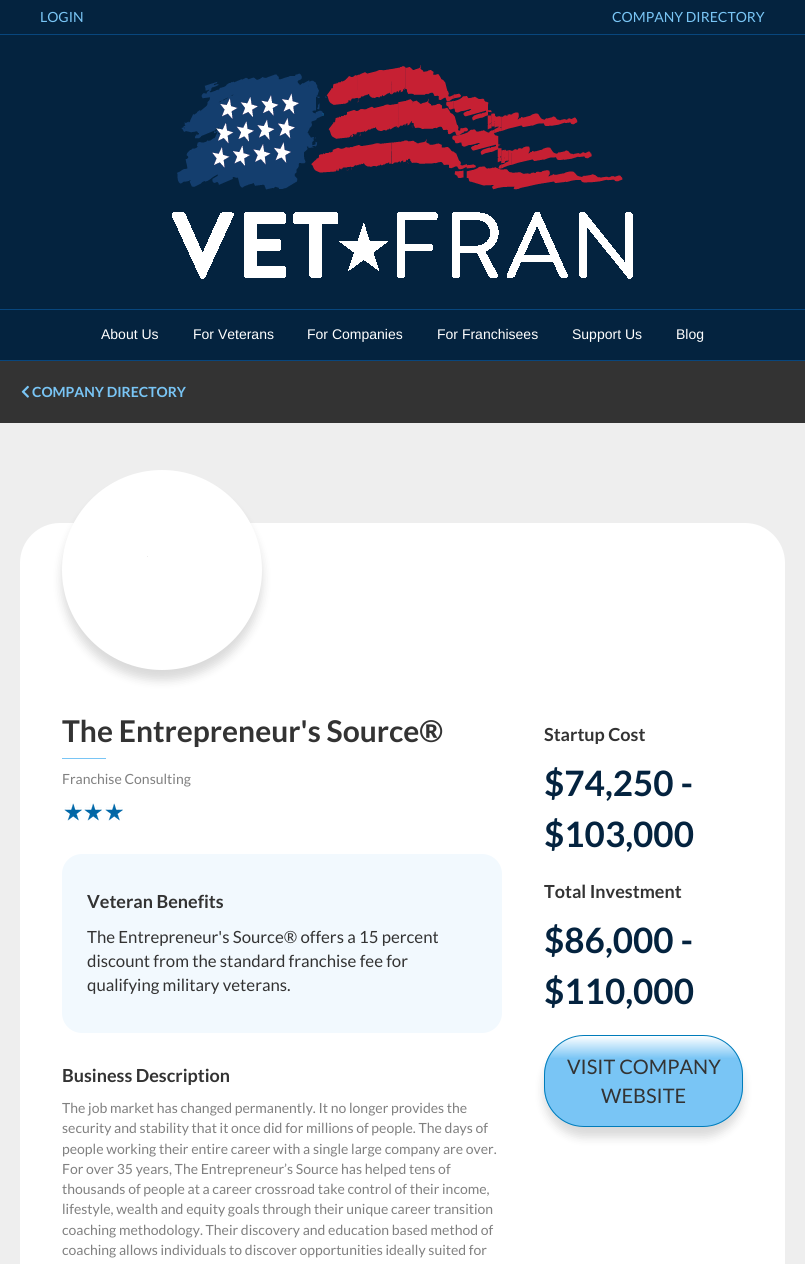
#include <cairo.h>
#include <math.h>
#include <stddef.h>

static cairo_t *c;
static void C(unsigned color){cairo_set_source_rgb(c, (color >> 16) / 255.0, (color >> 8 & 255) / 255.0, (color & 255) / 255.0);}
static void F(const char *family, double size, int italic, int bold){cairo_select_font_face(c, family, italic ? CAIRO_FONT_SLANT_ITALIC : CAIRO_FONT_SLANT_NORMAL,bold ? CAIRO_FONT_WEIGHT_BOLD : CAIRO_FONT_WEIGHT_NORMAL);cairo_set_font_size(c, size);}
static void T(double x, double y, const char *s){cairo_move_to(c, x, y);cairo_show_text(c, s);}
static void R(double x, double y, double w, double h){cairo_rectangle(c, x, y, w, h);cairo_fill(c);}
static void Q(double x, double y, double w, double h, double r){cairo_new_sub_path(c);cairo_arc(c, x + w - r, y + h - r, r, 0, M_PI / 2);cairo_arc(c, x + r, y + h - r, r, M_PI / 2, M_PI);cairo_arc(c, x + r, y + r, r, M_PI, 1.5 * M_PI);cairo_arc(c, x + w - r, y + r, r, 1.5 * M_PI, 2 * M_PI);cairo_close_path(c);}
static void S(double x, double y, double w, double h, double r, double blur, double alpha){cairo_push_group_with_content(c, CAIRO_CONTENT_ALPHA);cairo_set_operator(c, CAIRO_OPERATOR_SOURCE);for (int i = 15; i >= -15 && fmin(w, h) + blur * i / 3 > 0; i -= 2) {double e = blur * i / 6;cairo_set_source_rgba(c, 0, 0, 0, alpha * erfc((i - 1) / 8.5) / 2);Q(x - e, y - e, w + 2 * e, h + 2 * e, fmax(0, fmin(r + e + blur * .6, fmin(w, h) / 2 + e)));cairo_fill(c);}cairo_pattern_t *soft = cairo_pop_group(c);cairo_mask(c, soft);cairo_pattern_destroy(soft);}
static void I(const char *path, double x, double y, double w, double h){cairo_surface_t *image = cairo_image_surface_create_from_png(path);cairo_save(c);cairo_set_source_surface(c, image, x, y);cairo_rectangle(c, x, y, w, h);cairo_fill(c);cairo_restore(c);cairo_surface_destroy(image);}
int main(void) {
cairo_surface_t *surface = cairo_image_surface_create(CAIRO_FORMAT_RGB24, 805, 1264);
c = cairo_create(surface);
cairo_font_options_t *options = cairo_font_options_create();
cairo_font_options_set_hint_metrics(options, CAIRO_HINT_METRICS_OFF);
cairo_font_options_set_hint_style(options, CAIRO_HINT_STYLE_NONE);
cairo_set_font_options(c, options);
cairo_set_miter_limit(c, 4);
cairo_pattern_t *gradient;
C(0x04233f);
cairo_paint(c);
C(0x08467d);
R(0,34,805,1);
F("Lato",14,0,0);
C(0x79c5f5);
T(40,22,"LOGIN");
T(612,22,"COMPANY DIRECTORY");
I("1.png",172,65,461,214);
C(0x08467d);
R(0,309,805,1);
R(0,360,805,1);
F("Liberation Sans",14,0,0);
C(0xffffff);
T(101,339,"About Us");
T(193,339,"For Veterans");
T(307,339,"For Companies");
T(437,339,"For Franchisees");
T(572,339,"Support Us");
T(676,339,"Blog");
C(0x333333);
R(0,361,805,62);
I("2.png",21,385,8,13);
F("Lato",14,0,1);
C(0x79c5f5);
T(32,397,"COMPANY DIRECTORY");
C(0xeeeeee);
R(0,423,805,841);
C(0xffffff);
Q(20,523,765,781,40);
cairo_fill(c);
C(0x000000);
S(62,480,200,200,100,5,.15);
C(0xffffff);
cairo_arc(c,162,570,100,0,2 * M_PI);
cairo_fill(c);
C(0xececec);
R(147,556,1,1);
F("Lato",30,0,1);
C(0x333333);
T(62,742,"The Entrepreneur's Source®");
C(0x79c5f5);
R(62,758,44,1);
F("Lato",14,0,0);
C(0x808080);
T(62,784,"Franchise Consulting");
I("3.png",64,803,59,18);
C(0xf2f9fe);
Q(62,854,440,179,20);
cairo_fill(c);
F("Lato",18,0,1);
C(0x333333);
T(87,908,"Veteran Benefits");
F("Lato",16.8,0,0);
T(87,943,"The Entrepreneur's Source® offers a 15 percent");
T(87,967,"discount from the standard franchise fee for");
T(87,991,"qualifying military veterans.");
F("Lato",18,0,1);
T(62,1082,"Business Description");
F("Lato",14,0,0);
C(0x808080);
T(62,1113,"The job market has changed permanently. It no longer provides the");
T(62,1133,"security and stability that it once did for millions of people. The days of");
T(62,1154,"people working their entire career with a single large company are over.");
T(62,1174,"For over 35 years, The Entrepreneur’s Source has helped tens of");
T(62,1194,"thousands of people at a career crossroad take control of their income,");
T(62,1214,"lifestyle, wealth and equity goals through their unique career transition");
T(62,1235,"coaching methodology. Their discovery and education based method of");
T(62,1255,"coaching allows individuals to discover opportunities ideally suited for");
F("Lato",18,0,1);
C(0x333333);
T(544,741,"Startup Cost");
F("Lato",35,0,1);
C(0x04233f);
T(544,796,"$74,250 -");
T(544,847,"$103,000");
F("Lato",18,0,1);
C(0x333333);
T(544,898,"Total Investment");
F("Lato",35,0,1);
C(0x04233f);
T(544,953,"$86,000 -");
T(544,1004,"$110,000");
C(0x000000);
S(544,1045,199,92,40,5,.15);
cairo_save(c);
Q(544,1035,199,92,40);
cairo_clip(c);
gradient = cairo_pattern_create_linear(644,1036,644,1126);
cairo_pattern_add_color_stop_rgba(gradient,0,1,1,1,1);
cairo_pattern_add_color_stop_rgba(gradient,.25,0.475,0.773,0.961,1);
cairo_set_source(c,gradient);
cairo_pattern_destroy(gradient);
R(544,1036,199,90);
cairo_restore(c);
Q(544.5,1035.5,198,91,39.5);
C(0x007cba);
cairo_set_line_width(c,1);
cairo_stroke(c);
F("Lato",20,0,0);
C(0x333333);
T(567,1074,"VISIT COMPANY");
T(601,1103,"WEBSITE");
cairo_surface_write_to_png(surface, "o.png");
cairo_font_options_destroy(options);
cairo_destroy(c);
cairo_surface_destroy(surface);
return 0;
}
